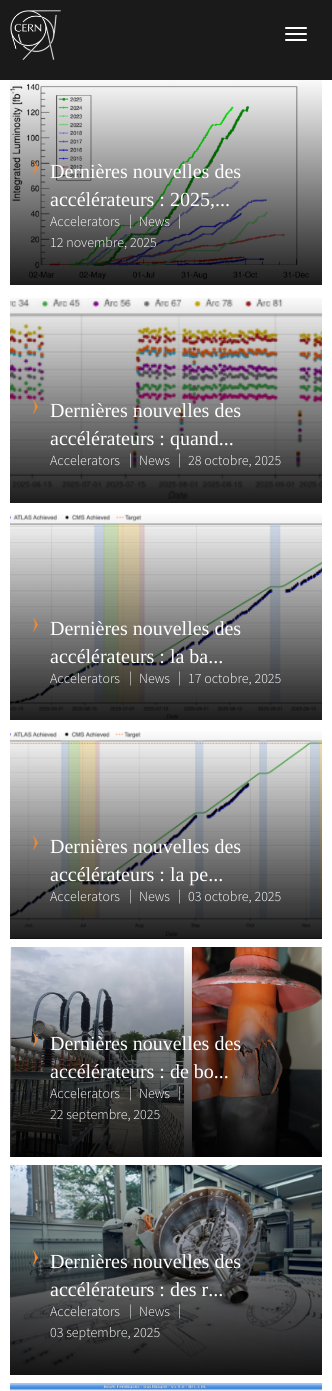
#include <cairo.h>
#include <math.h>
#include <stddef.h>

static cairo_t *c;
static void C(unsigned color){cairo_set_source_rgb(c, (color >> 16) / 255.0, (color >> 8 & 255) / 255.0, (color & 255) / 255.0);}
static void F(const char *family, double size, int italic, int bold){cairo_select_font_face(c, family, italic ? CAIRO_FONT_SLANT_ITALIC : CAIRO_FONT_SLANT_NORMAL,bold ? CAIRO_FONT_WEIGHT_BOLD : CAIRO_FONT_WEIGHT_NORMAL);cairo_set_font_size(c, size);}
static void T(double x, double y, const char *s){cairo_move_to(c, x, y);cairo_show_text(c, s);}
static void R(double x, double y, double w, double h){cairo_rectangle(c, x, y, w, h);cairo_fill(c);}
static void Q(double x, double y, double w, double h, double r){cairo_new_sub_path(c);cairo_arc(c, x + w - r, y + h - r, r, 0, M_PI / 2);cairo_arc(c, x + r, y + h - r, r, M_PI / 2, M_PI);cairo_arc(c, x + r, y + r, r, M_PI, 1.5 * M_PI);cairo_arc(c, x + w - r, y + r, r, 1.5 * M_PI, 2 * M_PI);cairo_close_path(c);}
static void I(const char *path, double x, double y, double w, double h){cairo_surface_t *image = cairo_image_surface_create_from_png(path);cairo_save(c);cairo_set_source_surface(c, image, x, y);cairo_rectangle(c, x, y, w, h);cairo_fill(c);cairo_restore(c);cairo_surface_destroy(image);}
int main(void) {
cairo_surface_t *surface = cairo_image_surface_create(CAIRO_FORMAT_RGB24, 332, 1391);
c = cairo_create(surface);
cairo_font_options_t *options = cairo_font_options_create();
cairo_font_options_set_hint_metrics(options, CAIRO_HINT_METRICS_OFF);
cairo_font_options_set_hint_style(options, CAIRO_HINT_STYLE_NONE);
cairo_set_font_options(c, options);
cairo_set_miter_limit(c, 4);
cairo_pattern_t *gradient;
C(0xffffff);
cairo_paint(c);
C(0x1a1a1a);
R(0,0,332,80);
I("1.png",10,10,51,50);
C(0xffffff);
Q(285,27,22,2,1);
cairo_fill(c);
Q(285,33,22,2,1);
cairo_fill(c);
Q(285,39,22,2,1);
cairo_fill(c);
I("2.png",10,83,300,197);
gradient = cairo_pattern_create_linear(168,75,168,287);
cairo_pattern_add_color_stop_rgba(gradient,0,0,0,0,0);
cairo_pattern_add_color_stop_rgba(gradient,1,0,0,0,.9);
cairo_set_source(c,gradient);
cairo_pattern_destroy(gradient);
R(10,80,312,205);
I("3.png",33,160,5,15);
F("Liberation Serif",20,0,0);
C(0xffffff);
T(50,178,"Dernières nouvelles des");
T(50,206,"accélérateurs : 2025,...");
F("Source Sans Pro Light",14,0,0);
T(50,226,"Accelerators");
T(129,225,"|");
T(139,226,"News");
T(178,225,"|");
T(50,247,"12 novembre, 2025");
I("4.png",10,298,312,202);
gradient = cairo_pattern_create_linear(168,293,168,505);
cairo_pattern_add_color_stop_rgba(gradient,0,0,0,0,0);
cairo_pattern_add_color_stop_rgba(gradient,1,0,0,0,.9);
cairo_set_source(c,gradient);
cairo_pattern_destroy(gradient);
R(10,298,312,205);
I("5.png",33,399,5,15);
F("Liberation Serif",20,0,0);
C(0xffffff);
T(50,417,"Dernières nouvelles des");
T(50,445,"accélérateurs : quand...");
F("Source Sans Pro Light",14,0,0);
T(50,465,"Accelerators");
T(129,464,"|");
T(139,465,"News");
T(178,464,"|");
T(188,465,"28 octobre, 2025");
I("6.png",10,514,312,206);
I("7.png",33,617,5,15);
F("Liberation Serif",20,0,0);
T(50,635,"Dernières nouvelles des");
T(50,663,"accélérateurs : la ba...");
F("Source Sans Pro Light",14,0,0);
T(50,683,"Accelerators");
T(129,682,"|");
T(139,683,"News");
T(178,682,"|");
T(188,683,"17 octobre, 2025");
I("8.png",10,731,312,208);
I("9.png",33,835,5,15);
F("Liberation Serif",20,0,0);
T(50,853,"Dernières nouvelles des");
T(50,881,"accélérateurs : la pe...");
F("Source Sans Pro Light",14,0,0);
T(50,901,"Accelerators");
T(129,900,"|");
T(139,901,"News");
T(178,900,"|");
T(188,901,"03 octobre, 2025");
I("10.png",10,947,312,210);
I("11.png",33,1032,5,15);
F("Liberation Serif",20,0,0);
T(50,1050,"Dernières nouvelles des");
T(50,1078,"accélérateurs : de bo...");
F("Source Sans Pro Light",14,0,0);
T(50,1098,"Accelerators");
T(129,1097,"|");
T(139,1098,"News");
T(178,1097,"|");
T(50,1119,"22 septembre, 2025");
I("12.png",10,1165,312,210);
I("13.png",33,1250,5,15);
F("Liberation Serif",20,0,0);
T(50,1268,"Dernières nouvelles des");
T(50,1296,"accélérateurs : des r...");
F("Source Sans Pro Light",14,0,0);
T(50,1316,"Accelerators");
T(129,1315,"|");
T(139,1316,"News");
T(178,1315,"|");
T(50,1337,"03 septembre, 2025");
I("14.png",10,1383,312,8);
cairo_surface_write_to_png(surface, "o.png");
cairo_font_options_destroy(options);
cairo_destroy(c);
cairo_surface_destroy(surface);
return 0;
}
